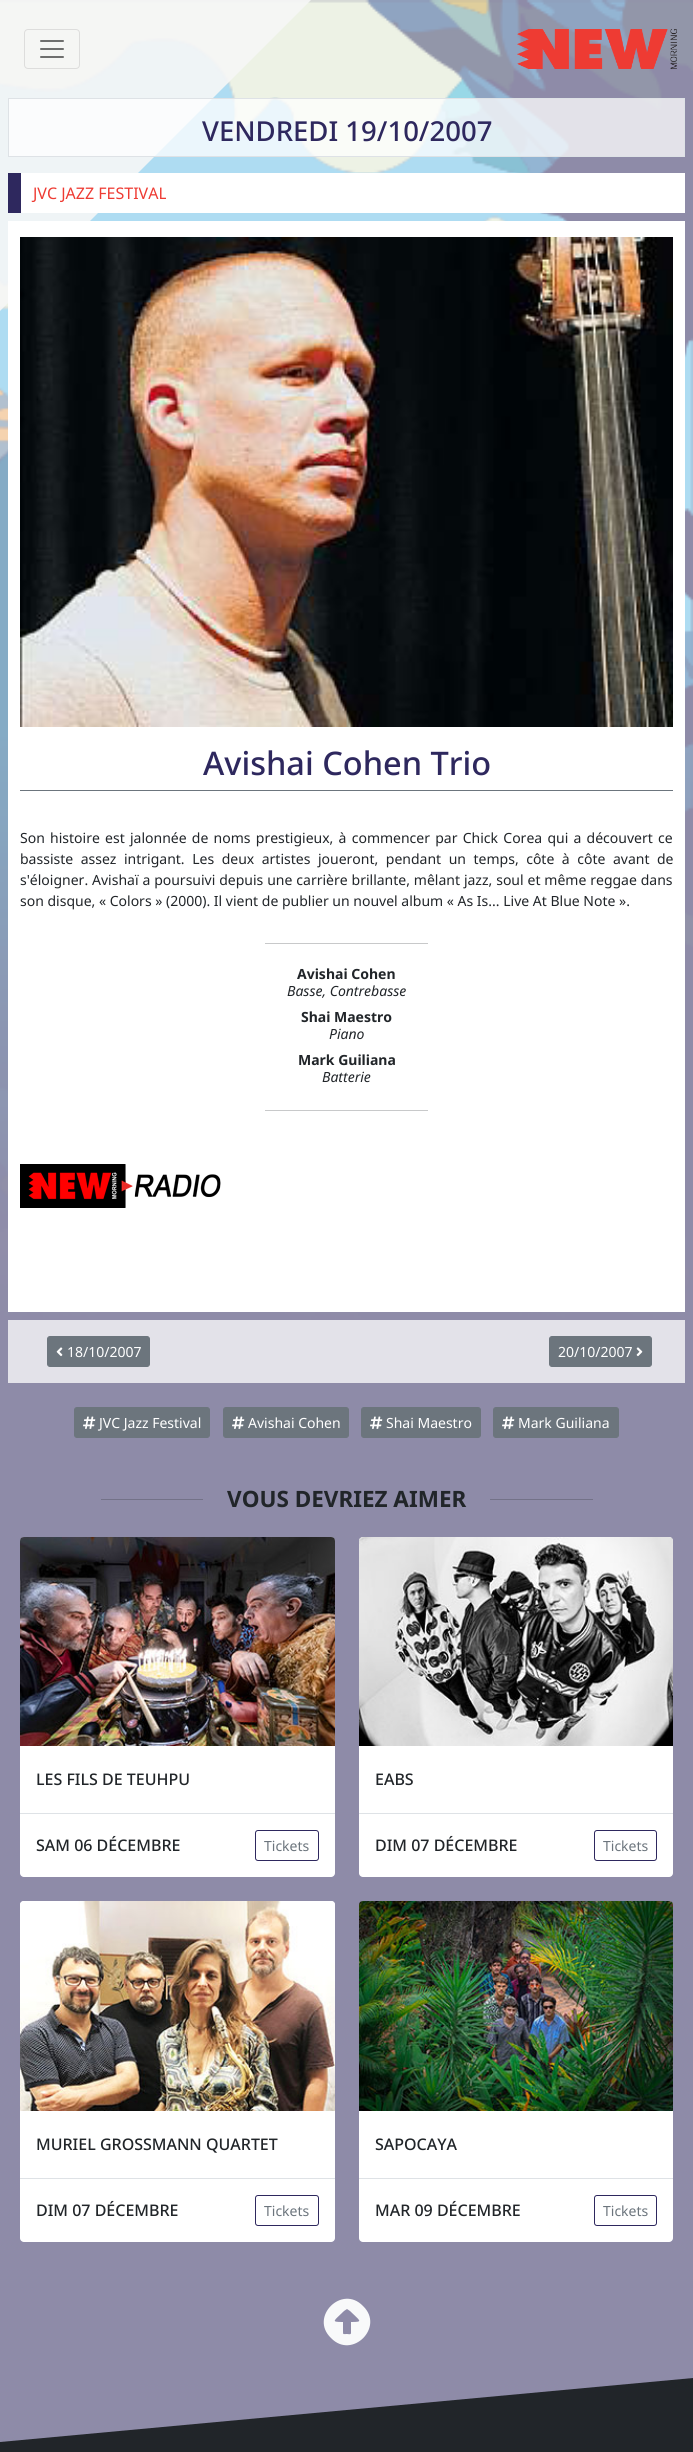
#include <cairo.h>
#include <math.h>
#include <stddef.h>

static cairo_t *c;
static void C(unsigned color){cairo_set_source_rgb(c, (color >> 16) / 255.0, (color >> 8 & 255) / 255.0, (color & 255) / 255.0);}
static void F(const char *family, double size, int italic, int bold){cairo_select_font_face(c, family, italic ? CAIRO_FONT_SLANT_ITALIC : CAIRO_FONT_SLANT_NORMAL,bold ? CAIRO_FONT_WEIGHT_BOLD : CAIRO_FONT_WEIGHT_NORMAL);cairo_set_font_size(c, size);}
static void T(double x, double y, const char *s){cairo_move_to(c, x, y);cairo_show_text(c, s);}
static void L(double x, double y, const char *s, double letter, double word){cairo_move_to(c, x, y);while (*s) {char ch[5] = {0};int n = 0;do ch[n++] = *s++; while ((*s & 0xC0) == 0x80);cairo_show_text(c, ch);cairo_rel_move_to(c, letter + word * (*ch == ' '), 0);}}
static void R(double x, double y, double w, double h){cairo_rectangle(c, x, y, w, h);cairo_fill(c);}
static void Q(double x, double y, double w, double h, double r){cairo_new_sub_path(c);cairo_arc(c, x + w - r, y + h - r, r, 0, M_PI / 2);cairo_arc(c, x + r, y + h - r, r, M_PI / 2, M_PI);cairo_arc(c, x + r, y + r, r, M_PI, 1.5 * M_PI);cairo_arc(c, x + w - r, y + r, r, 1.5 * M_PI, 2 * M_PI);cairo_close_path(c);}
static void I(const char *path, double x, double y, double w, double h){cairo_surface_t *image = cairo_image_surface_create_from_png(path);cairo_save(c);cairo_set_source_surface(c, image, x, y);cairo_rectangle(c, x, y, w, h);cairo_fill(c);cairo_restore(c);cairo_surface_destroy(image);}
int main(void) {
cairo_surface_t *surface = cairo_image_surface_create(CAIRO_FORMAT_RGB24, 693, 2452);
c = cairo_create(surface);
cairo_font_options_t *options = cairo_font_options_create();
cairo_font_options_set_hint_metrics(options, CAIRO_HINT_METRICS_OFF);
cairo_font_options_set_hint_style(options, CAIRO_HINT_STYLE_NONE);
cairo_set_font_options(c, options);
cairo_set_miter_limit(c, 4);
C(0xffffff);
cairo_paint(c);
I("1.png",0,0,693,2442);
cairo_set_source_rgba(c,0.965,0.965,0.965,0.9);
cairo_new_path(c);
cairo_move_to(c,0,0);
cairo_line_to(c,311,0);
cairo_line_to(c,0,311);
cairo_close_path(c);
cairo_fill(c);
Q(24.5,29.5,55,39,3.5);
C(0xdddddc);
cairo_set_line_width(c,1);
cairo_stroke(c);
I("2.png",40,40,24,18);
I("3.png",517,29,160,40);
cairo_set_source_rgba(c,1,1,1,0.75);
cairo_rectangle(c,8.5,98.5,676,58);
cairo_fill_preserve(c);
C(0xdee2e6);
cairo_stroke(c);
F("Noto Sans Medium",27.5,0,0);
C(0x2e285e);
T(202,141,"VENDREDI 19/10/2007");
C(0xffffff);
R(21,173,664,40);
C(0x2e285e);
R(8,173,13,40);
F("Noto Sans",16,0,0);
C(0xee3b33);
T(33,199,"JVC JAZZ FESTIVAL");
C(0xffffff);
R(8,221,677,1091);
I("4.png",20,237,653,490);
F("Noto Sans Medium",32.5,0,0);
C(0x2e285e);
T(203,775,"Avishai Cohen Trio");
C(0x6c757d);
R(20,790,653,1);
F("Noto Sans",14,0,0);
C(0x212529);
L(20,843,"Son histoire est jalonnée de noms prestigieux, à commencer par Chick Corea qui a découvert ce",0,1.6);
L(20,864,"bassiste assez intrigant. Les deux artistes joueront, pendant un temps, côte à côte avant de",0,3.9);
T(20,885,"s'éloigner.");
L(92,885,"Avishaï a poursuivi depuis une carrière brillante, mêlant jazz, soul et même reggae dans",0,.25);
T(20,906,"son disque, « Colors » (2000). Il vient de publier un nouvel album « As Is... Live At Blue Note ».");
C(0xc8c9ca);
R(265,943,163,1);
F("Noto Sans",14,0,1);
C(0x212529);
T(297,979,"Avishai Cohen");
F("Noto Sans",14,1,0);
T(287,996,"Basse, Contrebasse");
F("Noto Sans",14,0,1);
T(301,1022,"Shai Maestro");
F("Noto Sans",14,1,0);
T(329,1039,"Piano");
F("Noto Sans",14,0,1);
T(298,1065,"Mark Guiliana");
F("Noto Sans",14,1,0);
T(322,1082,"Batterie");
C(0xc8c9ca);
R(265,1110,163,1);
I("5.png",20,1164,201,44);
C(0xe3e2e9);
R(8,1320,677,63);
C(0x6c757d);
Q(47.5,1336.5,102,30,2.5);
cairo_fill_preserve(c);
cairo_stroke(c);
I("6.png",56,1347,7,10);
F("Noto Sans",14,0,0);
C(0xffffff);
T(67,1357,"18/10/2007");
C(0x6c757d);
Q(549.5,1336.5,102,30,2.5);
cairo_fill_preserve(c);
cairo_stroke(c);
C(0xffffff);
T(558,1357,"20/10/2007");
I("7.png",636,1347,7,10);
C(0x6c757d);
Q(74.5,1407.5,135,30,2.5);
cairo_fill_preserve(c);
cairo_stroke(c);
I("8.png",83,1416,13,13);
C(0xffffff);
T(99,1428,"JVC Jazz Festival");
C(0x6c757d);
Q(223.5,1407.5,125,30,2.5);
cairo_fill_preserve(c);
cairo_stroke(c);
I("8.png",232,1416,13,13);
C(0xffffff);
T(248,1428,"Avishai Cohen");
C(0x6c757d);
Q(361.5,1407.5,119,30,2.5);
cairo_fill_preserve(c);
cairo_stroke(c);
I("8.png",370,1416,13,13);
C(0xffffff);
T(386,1428,"Shai Maestro");
C(0x6c757d);
Q(493.5,1407.5,125,30,2.5);
cairo_fill_preserve(c);
cairo_stroke(c);
I("8.png",502,1416,13,13);
C(0xffffff);
T(518,1428,"Mark Guiliana");
C(0x737288);
R(101,1499,102,1);
F("Noto Sans",22.5,0,1);
C(0x212529);
T(227,1507,"VOUS DEVRIEZ AIMER");
C(0x737288);
R(490,1499,103,1);
C(0xffffff);
Q(20,1537,315,340,4);
cairo_fill(c);
I("9.png",20,1537,315,209);
F("Noto Sans Medium",16,0,0);
C(0x212529);
T(36,1785,"LES FILS DE TEUHPU");
C(0xdee2e6);
R(20,1813,315,1);
C(0x212529);
T(36,1851,"SAM 06 DÉCEMBRE");
Q(255.5,1830.5,63,30,2.5);
C(0x2e285e);
cairo_stroke(c);
F("Noto Sans",14,0,0);
C(0x6c757d);
T(264,1851,"Tickets");
C(0xffffff);
Q(359,1537,314,340,4);
cairo_fill(c);
I("10.png",359,1537,314,209);
F("Noto Sans Medium",16,0,0);
C(0x212529);
T(375,1785,"EABS");
C(0xdee2e6);
R(359,1813,314,1);
C(0x212529);
T(375,1851,"DIM 07 DÉCEMBRE");
Q(594.5,1830.5,62,30,2.5);
C(0x2e285e);
cairo_stroke(c);
F("Noto Sans",14,0,0);
C(0x6c757d);
T(603,1851,"Tickets");
C(0xffffff);
Q(20,1901,315,341,4);
cairo_fill(c);
I("11.png",20,1901,315,210);
F("Noto Sans Medium",16,0,0);
C(0x212529);
T(36,2150,"MURIEL GROSSMANN QUARTET");
C(0xdee2e6);
R(20,2178,315,1);
C(0x212529);
T(36,2216,"DIM 07 DÉCEMBRE");
Q(255.5,2195.5,63,30,2.5);
C(0x2e285e);
cairo_stroke(c);
F("Noto Sans",14,0,0);
C(0x6c757d);
T(264,2216,"Tickets");
C(0xffffff);
Q(359,1901,314,341,4);
cairo_fill(c);
I("12.png",359,1901,314,210);
F("Noto Sans Medium",16,0,0);
C(0x212529);
T(375,2150,"SAPOCAYA");
C(0xdee2e6);
R(359,2178,314,1);
C(0x212529);
T(375,2216,"MAR 09 DÉCEMBRE");
Q(594.5,2195.5,62,30,2.5);
C(0x2e285e);
cairo_stroke(c);
F("Noto Sans",14,0,0);
C(0x6c757d);
T(603,2216,"Tickets");
C(0xf8f9fa);
cairo_new_path(c);
cairo_move_to(c,331,2338);
cairo_curve_to(c,309,2317,342,2284,363,2306);
cairo_curve_to(c,385,2327,352,2360,331,2338);
cairo_close_path(c);
cairo_move_to(c,351,2333);
cairo_line_to(c,351,2322);
cairo_curve_to(c,364,2322,360,2321,350,2311);
cairo_line_to(c,347,2309);
cairo_line_to(c,344,2311);
cairo_curve_to(c,334,2321,330,2322,343,2322);
cairo_line_to(c,343,2331);
cairo_curve_to(c,343,2335,343,2334,347,2334);
cairo_curve_to(c,348,2334,351,2335,351,2333);
cairo_close_path(c);
cairo_fill(c);
C(0x212529);
cairo_new_path(c);
cairo_move_to(c,693,2442);
cairo_line_to(c,693,2378);
cairo_line_to(c,0,2442);
cairo_fill(c);
R(0,2442,693,10);
cairo_surface_write_to_png(surface, "o.png");
cairo_font_options_destroy(options);
cairo_destroy(c);
cairo_surface_destroy(surface);
return 0;
}
